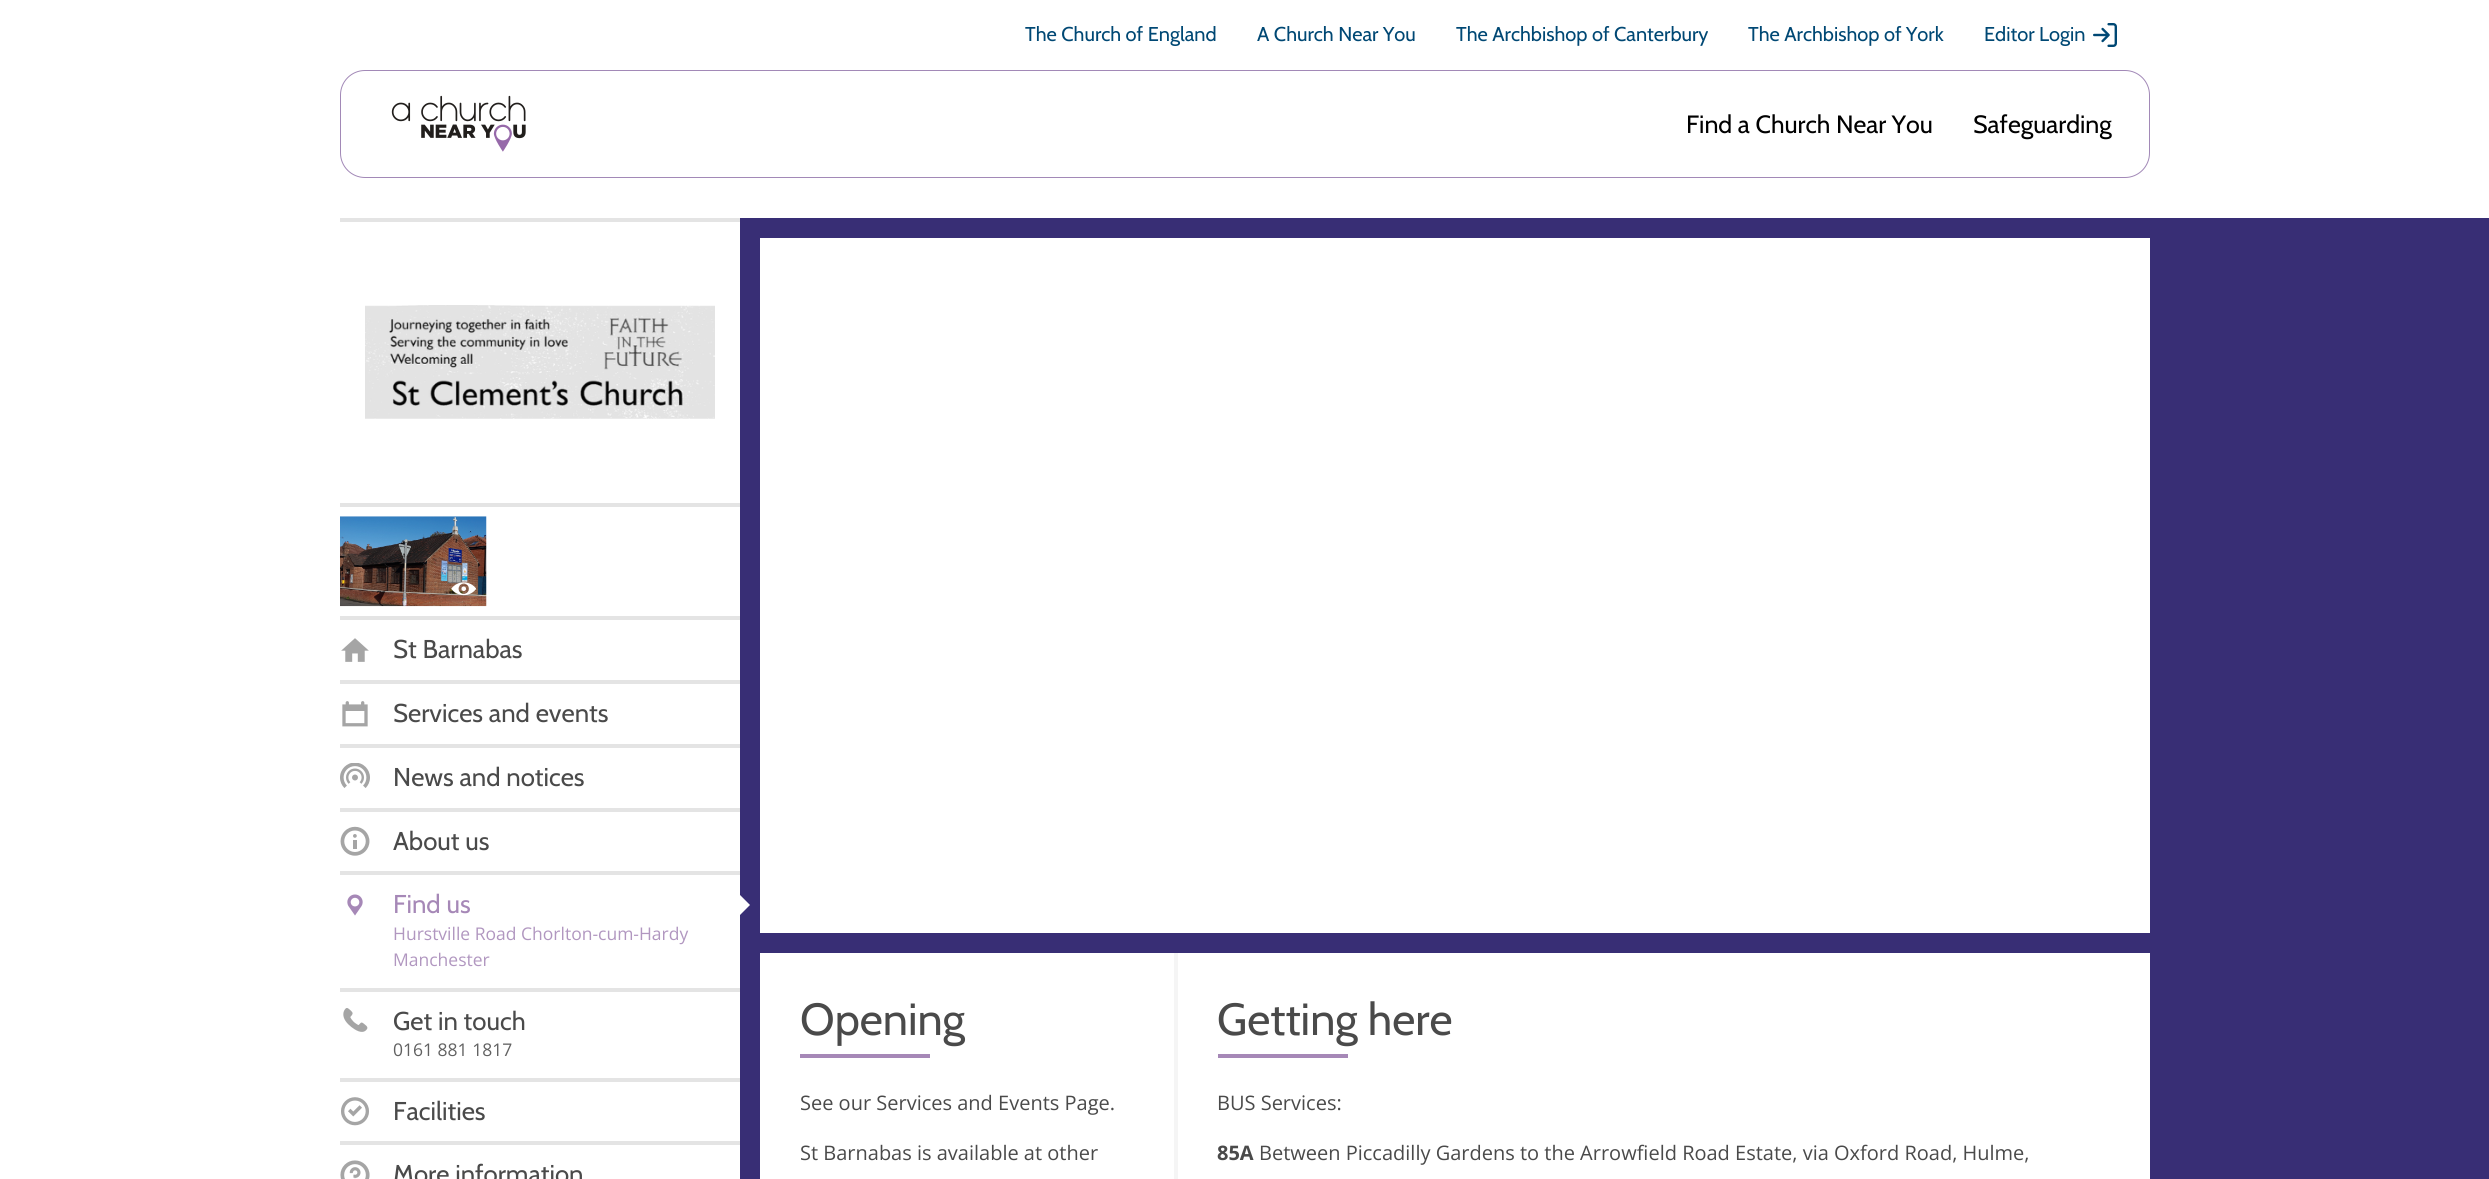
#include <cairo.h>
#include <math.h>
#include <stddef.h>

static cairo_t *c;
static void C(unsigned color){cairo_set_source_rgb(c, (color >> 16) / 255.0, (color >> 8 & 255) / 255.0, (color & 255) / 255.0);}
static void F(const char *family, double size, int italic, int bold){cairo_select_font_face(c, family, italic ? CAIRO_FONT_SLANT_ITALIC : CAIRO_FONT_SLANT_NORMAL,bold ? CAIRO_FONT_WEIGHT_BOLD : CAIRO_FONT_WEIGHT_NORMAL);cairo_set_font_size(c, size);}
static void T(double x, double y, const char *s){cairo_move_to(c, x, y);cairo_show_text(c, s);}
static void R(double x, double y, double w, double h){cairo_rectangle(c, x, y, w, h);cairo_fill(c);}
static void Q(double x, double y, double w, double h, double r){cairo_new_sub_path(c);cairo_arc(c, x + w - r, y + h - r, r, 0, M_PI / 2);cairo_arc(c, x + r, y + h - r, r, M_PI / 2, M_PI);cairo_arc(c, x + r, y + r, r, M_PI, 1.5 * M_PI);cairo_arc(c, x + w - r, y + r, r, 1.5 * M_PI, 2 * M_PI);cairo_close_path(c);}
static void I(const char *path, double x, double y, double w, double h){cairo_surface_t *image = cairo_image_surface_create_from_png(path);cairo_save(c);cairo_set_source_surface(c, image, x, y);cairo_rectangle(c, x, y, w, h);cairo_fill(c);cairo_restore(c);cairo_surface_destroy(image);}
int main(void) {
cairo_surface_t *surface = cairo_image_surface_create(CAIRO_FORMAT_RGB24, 2489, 1179);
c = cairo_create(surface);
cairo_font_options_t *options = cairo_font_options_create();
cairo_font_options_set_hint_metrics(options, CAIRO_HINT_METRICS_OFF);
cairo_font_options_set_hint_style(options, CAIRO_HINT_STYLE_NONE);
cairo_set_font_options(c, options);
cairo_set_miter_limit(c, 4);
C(0xffffff);
cairo_paint(c);
F("Cabin",20,0,0);
C(0x004874);
T(1025,41,"The Church of England");
T(1257,41,"A Church Near You");
T(1456,41,"The Archbishop of Canterbury");
T(1748,41,"The Archbishop of York");
T(1984,41,"Editor Login");
I("1.png",2093,23,24,24);
Q(340.5,70.5,1809,107,24.5);
C(0xa289b7);
cairo_set_line_width(c,1);
cairo_stroke(c);
I("2.png",391,95,135,57);
F("Cabin",25,0,0);
C(0x000000);
T(1686,133,"Find a Church Near You");
T(1973,133,"Safeguarding");
C(0x382e75);
R(740,218,1749,961);
C(0xe4e4e4);
R(340,218,400,4);
I("3.png",365,305,350,114);
R(340,503,400,4);
R(340,616,400,4);
I("4.png",340,516,147,91);
I("5.png",451,582,25,14);
I("6.png",341,638,28,24);
F("Cabin",25.75,0,0);
C(0x4a4a4a);
T(393,658,"St Barnabas");
C(0xe4e4e4);
R(340,680,400,4);
I("7.png",342,701,26,26);
C(0x4a4a4a);
T(393,722,"Services and events");
C(0xe4e4e4);
R(340,744,400,4);
I("8.png",340,763,30,25);
C(0x4a4a4a);
T(393,786,"News and notices");
C(0xe4e4e4);
R(340,808,400,4);
I("9.png",340,826,30,30);
C(0x4a4a4a);
T(393,850,"About us");
C(0xe4e4e4);
R(340,871,400,4);
I("10.png",347,894,16,22);
C(0xa688b7);
T(393,913,"Find us");
F("Open Sans",17.5,0,0);
C(0xb197c0);
T(393,940,"Hurstville Road Chorlton-cum-Hardy");
T(393,966,"Manchester");
C(0xffffff);
cairo_new_path(c);
cairo_move_to(c,740,915);
cairo_line_to(c,740,895);
cairo_line_to(c,750,905);
cairo_close_path(c);
cairo_fill(c);
C(0xe4e4e4);
R(340,988,400,4);
I("11.png",343,1008,25,24);
F("Cabin",25.75,0,0);
C(0x4a4a4a);
T(393,1030,"Get in touch");
F("Open Sans",17.5,0,0);
C(0x616161);
T(393,1056,"0161 881 1817");
C(0xe4e4e4);
R(340,1078,400,4);
I("12.png",341,1097,28,29);
F("Cabin",25.75,0,0);
C(0x4a4a4a);
T(393,1120,"Facilities");
C(0xe4e4e4);
R(340,1141,400,4);
I("13.png",340,1160,30,19);
C(0x4a4a4a);
T(393,1183,"More information");
C(0xffffff);
R(760,238,1390,695);
R(760,953,1390,226);
C(0xf5f5f5);
R(1174,953,4,226);
F("Cabin",45,0,0);
C(0x4a4a4a);
T(800,1035,"Opening");
C(0xa688b7);
R(800,1054,130,4);
F("Open Sans",20,0,0);
C(0x4a4a4a);
T(800,1110,"See our Services and Events Page.");
T(800,1160,"St Barnabas is available at other");
F("Cabin",45,0,0);
T(1217,1035,"Getting here");
C(0xa688b7);
R(1218,1054,130,4);
F("Open Sans",20,0,0);
C(0x4a4a4a);
T(1217,1110,"BUS Services:");
F("Open Sans",20,0,1);
T(1217,1160,"85A");
F("Open Sans",20,0,0);
T(1259,1160,"Between Piccadilly Gardens to the Arrowfield Road Estate, via Oxford Road, Hulme,");
cairo_surface_write_to_png(surface, "o.png");
cairo_font_options_destroy(options);
cairo_destroy(c);
cairo_surface_destroy(surface);
return 0;
}
